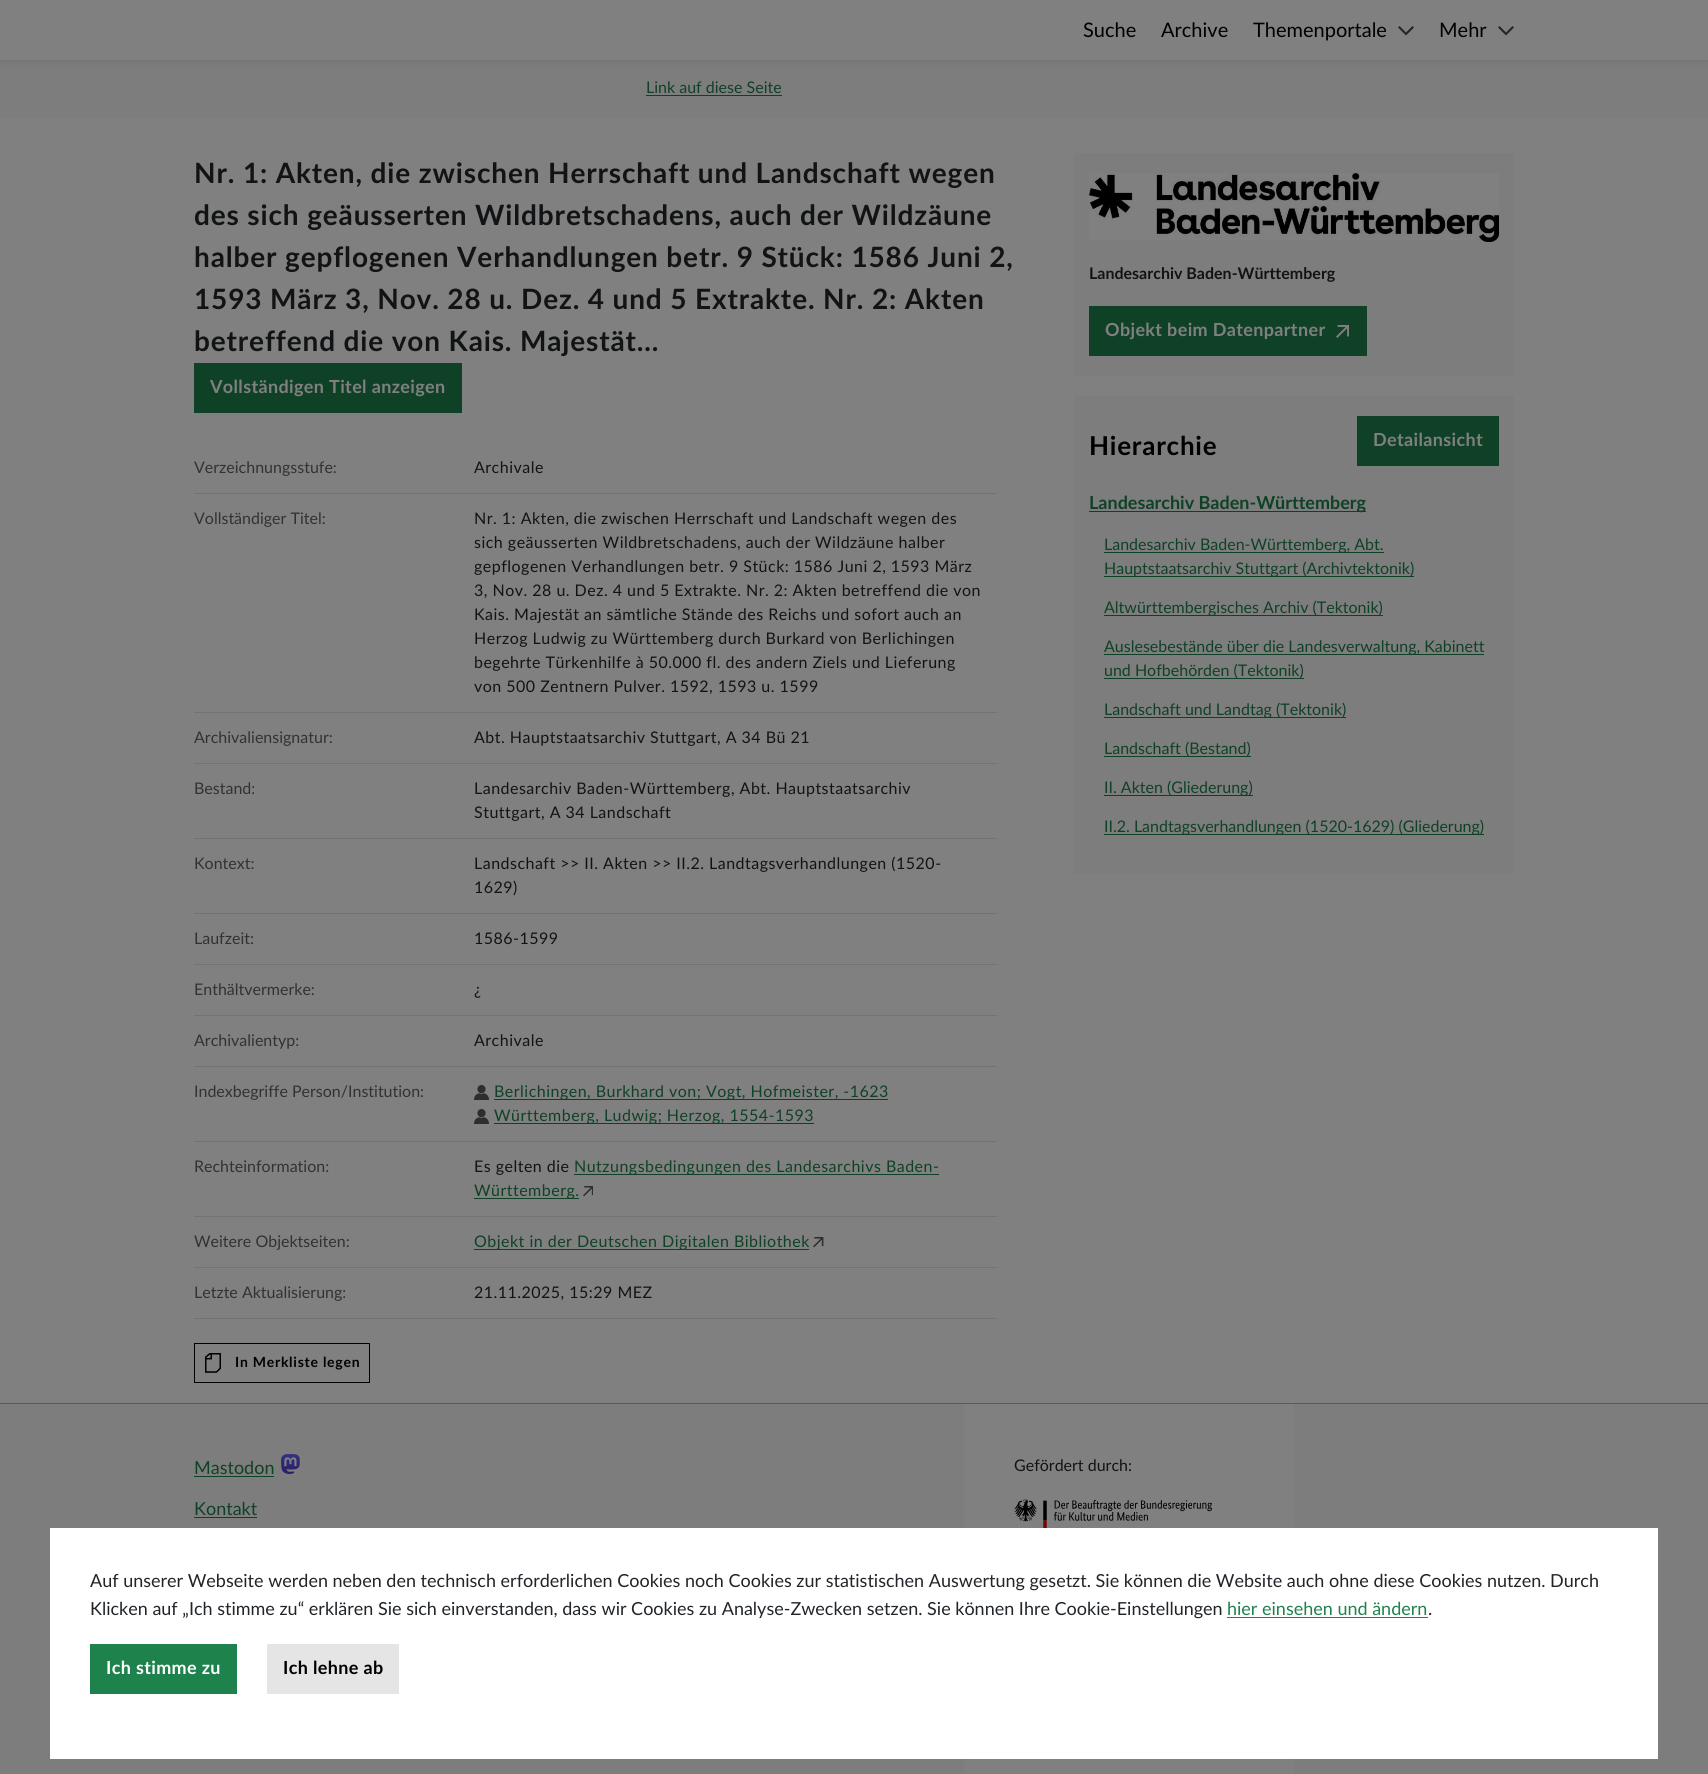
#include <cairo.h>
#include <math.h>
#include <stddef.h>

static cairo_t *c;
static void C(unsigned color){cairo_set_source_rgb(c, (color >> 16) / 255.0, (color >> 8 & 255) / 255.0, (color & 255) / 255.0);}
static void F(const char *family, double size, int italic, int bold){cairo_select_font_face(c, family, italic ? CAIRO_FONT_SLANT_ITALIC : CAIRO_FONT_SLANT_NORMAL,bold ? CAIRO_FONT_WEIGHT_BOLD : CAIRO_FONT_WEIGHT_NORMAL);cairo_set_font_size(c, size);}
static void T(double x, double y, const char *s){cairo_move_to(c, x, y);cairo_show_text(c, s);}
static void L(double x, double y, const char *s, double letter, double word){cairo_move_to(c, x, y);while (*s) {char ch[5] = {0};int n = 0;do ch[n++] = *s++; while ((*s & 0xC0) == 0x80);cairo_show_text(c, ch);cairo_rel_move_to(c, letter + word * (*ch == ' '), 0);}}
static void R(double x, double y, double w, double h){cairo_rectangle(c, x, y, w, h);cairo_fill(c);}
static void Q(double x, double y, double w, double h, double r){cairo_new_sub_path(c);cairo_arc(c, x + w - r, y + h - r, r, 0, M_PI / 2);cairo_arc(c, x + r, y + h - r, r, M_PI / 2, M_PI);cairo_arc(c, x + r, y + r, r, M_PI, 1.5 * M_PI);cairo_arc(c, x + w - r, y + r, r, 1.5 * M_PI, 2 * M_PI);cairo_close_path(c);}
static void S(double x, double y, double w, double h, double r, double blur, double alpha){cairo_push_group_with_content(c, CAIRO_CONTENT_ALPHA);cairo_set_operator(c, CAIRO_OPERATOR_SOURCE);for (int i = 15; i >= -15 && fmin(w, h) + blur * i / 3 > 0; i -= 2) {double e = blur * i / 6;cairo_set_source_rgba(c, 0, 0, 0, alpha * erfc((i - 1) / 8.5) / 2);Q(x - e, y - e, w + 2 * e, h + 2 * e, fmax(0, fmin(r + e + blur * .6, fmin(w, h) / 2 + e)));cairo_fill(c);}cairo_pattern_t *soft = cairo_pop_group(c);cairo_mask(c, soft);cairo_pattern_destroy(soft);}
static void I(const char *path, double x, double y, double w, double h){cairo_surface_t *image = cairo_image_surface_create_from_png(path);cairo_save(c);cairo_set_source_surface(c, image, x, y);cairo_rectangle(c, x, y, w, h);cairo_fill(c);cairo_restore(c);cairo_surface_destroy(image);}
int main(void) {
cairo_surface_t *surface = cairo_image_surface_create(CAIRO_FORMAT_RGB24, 1708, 1774);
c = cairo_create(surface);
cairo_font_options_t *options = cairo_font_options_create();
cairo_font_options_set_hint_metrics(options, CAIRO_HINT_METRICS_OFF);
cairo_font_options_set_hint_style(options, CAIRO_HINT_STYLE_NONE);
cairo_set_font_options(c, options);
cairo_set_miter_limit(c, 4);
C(0x808080);
cairo_paint(c);
C(0x7d7d7d);
R(0,60,1708,58);
C(0x000000);
S(0,0,1708,60,0,4.5,.14);
C(0x808080);
R(0,0,1708,60);
F("Lato",20,0,0);
C(0x000000);
T(1083,37,"Suche");
T(1161,37,"Archive");
T(1253,37,"Themenportale");
cairo_new_path(c);
cairo_move_to(c,1399.5,27.5);
cairo_line_to(c,1406,34);
cairo_line_to(c,1412.5,27.5);
C(0x252525);
cairo_set_line_width(c,2.1);
cairo_set_line_cap(c,CAIRO_LINE_CAP_SQUARE);
cairo_stroke(c);
C(0x000000);
T(1439,37,"Mehr");
cairo_new_path(c);
cairo_move_to(c,1499.5,27.5);
cairo_line_to(c,1506,34);
cairo_line_to(c,1512.5,27.5);
C(0x252525);
cairo_stroke(c);
F("Lato",16,0,0);
C(0x0f4126);
T(646,93,"Link auf diese Seite");
R(646,95,136,1);
F("Lato",28,0,1);
C(0x111315);
L(194,183,"Nr. 1: Akten, die zwischen Herrschaft und Landschaft wegen",.85,0);
L(194,225,"des sich geäusserten Wildbretschadens, auch der Wildzäune",.85,0);
L(194,267,"halber gepflogenen Verhandlungen betr. 9 Stück: 1586 Juni 2,",.85,0);
L(194,309,"1593 März 3, Nov. 28 u. Dez. 4 und 5 Extrakte. Nr. 2: Akten",.85,0);
L(194,351,"betreffend die von Kais. Majestät…",.85,0);
C(0x0f4126);
R(194,363,268,50);
F("Lato",18,0,1);
C(0x808080);
L(210,393,"Vollständigen Titel anzeigen",.35,0);
C(0x737373);
R(194,493,803,1);
F("Lato",16,0,0);
C(0x333231);
T(194,473,"Verzeichnungsstufe:");
C(0x111315);
L(474,473,"Archivale",.48,0);
C(0x737373);
R(194,712,803,1);
C(0x333231);
T(194,524,"Vollständiger Titel:");
C(0x111315);
L(474,524,"Nr. 1: Akten, die zwischen Herrschaft und Landschaft wegen des",.48,0);
L(474,548,"sich geäusserten Wildbretschadens, auch der Wildzäune halber",.48,0);
L(474,572,"gepflogenen Verhandlungen betr. 9 Stück: 1586 Juni 2, 1593 März",.48,0);
L(474,596,"3, Nov. 28 u. Dez. 4 und 5 Extrakte. Nr. 2: Akten betreffend die von",.48,0);
L(474,620,"Kais. Majestät an sämtliche Stände des Reichs und sofort auch an",.48,0);
L(474,644,"Herzog Ludwig zu Württemberg durch Burkard von Berlichingen",.48,0);
L(474,668,"begehrte Türkenhilfe à 50.000 fl. des andern Ziels und Lieferung",.48,0);
L(474,692,"von 500 Zentnern Pulver. 1592, 1593 u. 1599",.48,0);
C(0x737373);
R(194,763,803,1);
C(0x333231);
T(194,743,"Archivaliensignatur:");
C(0x111315);
L(474,743,"Abt. Hauptstaatsarchiv Stuttgart, A 34 Bü 21",.48,0);
C(0x737373);
R(194,838,803,1);
C(0x333231);
T(194,794,"Bestand:");
C(0x111315);
L(474,794,"Landesarchiv Baden-Württemberg, Abt. Hauptstaatsarchiv",.48,0);
L(474,818,"Stuttgart, A 34 Landschaft",.48,0);
C(0x737373);
R(194,913,803,1);
C(0x333231);
T(194,869,"Kontext:");
C(0x111315);
L(474,869,"Landschaft >> II. Akten >> II.2. Landtagsverhandlungen (1520-",.48,0);
L(474,893,"1629)",.48,0);
C(0x737373);
R(194,964,803,1);
C(0x333231);
T(194,944,"Laufzeit:");
C(0x111315);
L(474,944,"1586-1599",.48,0);
C(0x737373);
R(194,1015,803,1);
C(0x333231);
T(194,995,"Enthältvermerke:");
C(0x111315);
L(474,995,"¿",.48,0);
C(0x737373);
R(194,1066,803,1);
C(0x333231);
T(194,1046,"Archivalientyp:");
C(0x111315);
L(474,1046,"Archivale",.48,0);
C(0x737373);
R(194,1141,803,1);
C(0x333231);
T(194,1097,"Indexbegriffe Person/Institution:");
I("1.png",474,1085,15,15);
C(0x0f4126);
R(494,1099,394,1);
L(494,1097,"Berlichingen, Burkhard von; Vogt, Hofmeister, -1623",.48,0);
I("1.png",474,1109,15,15);
R(494,1123,320,1);
L(494,1121,"Württemberg, Ludwig; Herzog, 1554-1593",.48,0);
C(0x737373);
R(194,1216,803,1);
C(0x333231);
T(194,1172,"Rechteinformation:");
C(0x0f4126);
R(574,1174,365,1);
L(574,1172,"Nutzungsbedingungen des Landesarchivs Baden-",.48,0);
R(474,1198,105,1);
L(474,1196,"Württemberg.",.48,0);
I("2.png",583,1186,10,11);
C(0x111315);
L(474,1172,"Es gelten die",.48,0);
C(0x737373);
R(194,1267,803,1);
C(0x333231);
T(194,1247,"Weitere Objektseiten:");
C(0x0f4126);
R(474,1249,335,1);
L(474,1247,"Objekt in der Deutschen Digitalen Bibliothek",.48,0);
I("3.png",813,1237,11,11);
C(0x737373);
R(194,1318,803,1);
C(0x333231);
T(194,1298,"Letzte Aktualisierung:");
C(0x111315);
L(474,1298,"21.11.2025, 15:29 MEZ",.48,0);
cairo_rectangle(c,194.5,1343.5,175,39);
C(0x000000);
cairo_set_line_width(c,1);
cairo_set_line_cap(c,CAIRO_LINE_CAP_BUTT);
cairo_stroke(c);
I("4.png",205,1353,16,20);
F("Lato",14,0,1);
L(235,1367,"In Merkliste legen",.75,0);
C(0x7d7d7d);
R(1074,153,440,223);
I("5.png",1089,173,410,69);
F("Lato",16,0,1);
C(0x111315);
T(1089,279,"Landesarchiv Baden-Württemberg");
C(0x0f4126);
R(1089,306,278,50);
F("Lato",18,0,1);
C(0x808080);
L(1105,336,"Objekt beim Datenpartner",.35,0);
I("6.png",1336,325,13,13);
C(0x7d7d7d);
R(1074,396,440,478);
F("Lato",26,0,1);
C(0x000000);
L(1089,455,"Hierarchie",.75,0);
C(0x0f4126);
R(1357,416,142,50);
F("Lato",18,0,1);
C(0x808080);
L(1373,446,"Detailansicht",.35,0);
C(0x0f4126);
R(1089,511,277,1);
T(1089,509,"Landesarchiv Baden-Württemberg");
R(1104,552,280,1);
F("Lato",16,0,0);
T(1104,550,"Landesarchiv Baden-Württemberg, Abt.");
R(1104,576,310,1);
T(1104,574,"Hauptstaatsarchiv Stuttgart (Archivtektonik)");
R(1104,615,279,1);
T(1104,613,"Altwürttembergisches Archiv (Tektonik)");
R(1104,654,380,1);
T(1104,652,"Auslesebestände über die Landesverwaltung, Kabinett");
R(1104,678,200,1);
T(1104,676,"und Hofbehörden (Tektonik)");
R(1104,717,242,1);
T(1104,715,"Landschaft und Landtag (Tektonik)");
R(1104,756,147,1);
T(1104,754,"Landschaft (Bestand)");
R(1104,795,149,1);
T(1104,793,"II. Akten (Gliederung)");
R(1104,834,380,1);
T(1104,832,"II.2. Landtagsverhandlungen (1520-1629) (Gliederung)");
C(0x7d7d7d);
R(0,1404,1708,370);
C(0x5a5757);
R(0,1403,1708,1);
F("Lato",18,0,0);
C(0x0f4126);
T(194,1474,"Mastodon");
R(194,1476,80,1);
I("7.png",281,1454,19,20);
T(194,1515,"Kontakt");
R(194,1517,63,1);
C(0x808080);
R(964,1404,330,370);
F("Lato",16,0,0);
C(0x111315);
T(1014,1471,"Gefördert durch:");
I("8.png",1014,1499,198,29);
C(0xffffff);
R(50,1528,1608,231);
F("Lato",18,0,0);
C(0x212529);
T(90,1587,"Auf unserer Webseite werden neben den technisch erforderlichen Cookies noch Cookies zur statistischen Auswertung gesetzt. Sie können die Website auch ohne diese Cookies nutzen. Durch");
T(90,1615,"Klicken auf „Ich stimme zu“ erklären Sie sich einverstanden, dass wir Cookies zu Analyse-Zwecken setzen. Sie können Ihre Cookie-Einstellungen");
C(0x1e824c);
T(1227,1615,"hier einsehen und ändern");
R(1227,1617,201,1);
C(0x212529);
T(1428,1615,".");
C(0x1e824c);
R(90,1644,147,50);
F("Lato",18,0,1);
C(0xffffff);
L(106,1674,"Ich stimme zu",.35,0);
C(0xe5e5e5);
R(267,1644,132,50);
C(0x000000);
L(283,1674,"Ich lehne ab",.35,0);
cairo_surface_write_to_png(surface, "o.png");
cairo_font_options_destroy(options);
cairo_destroy(c);
cairo_surface_destroy(surface);
return 0;
}
